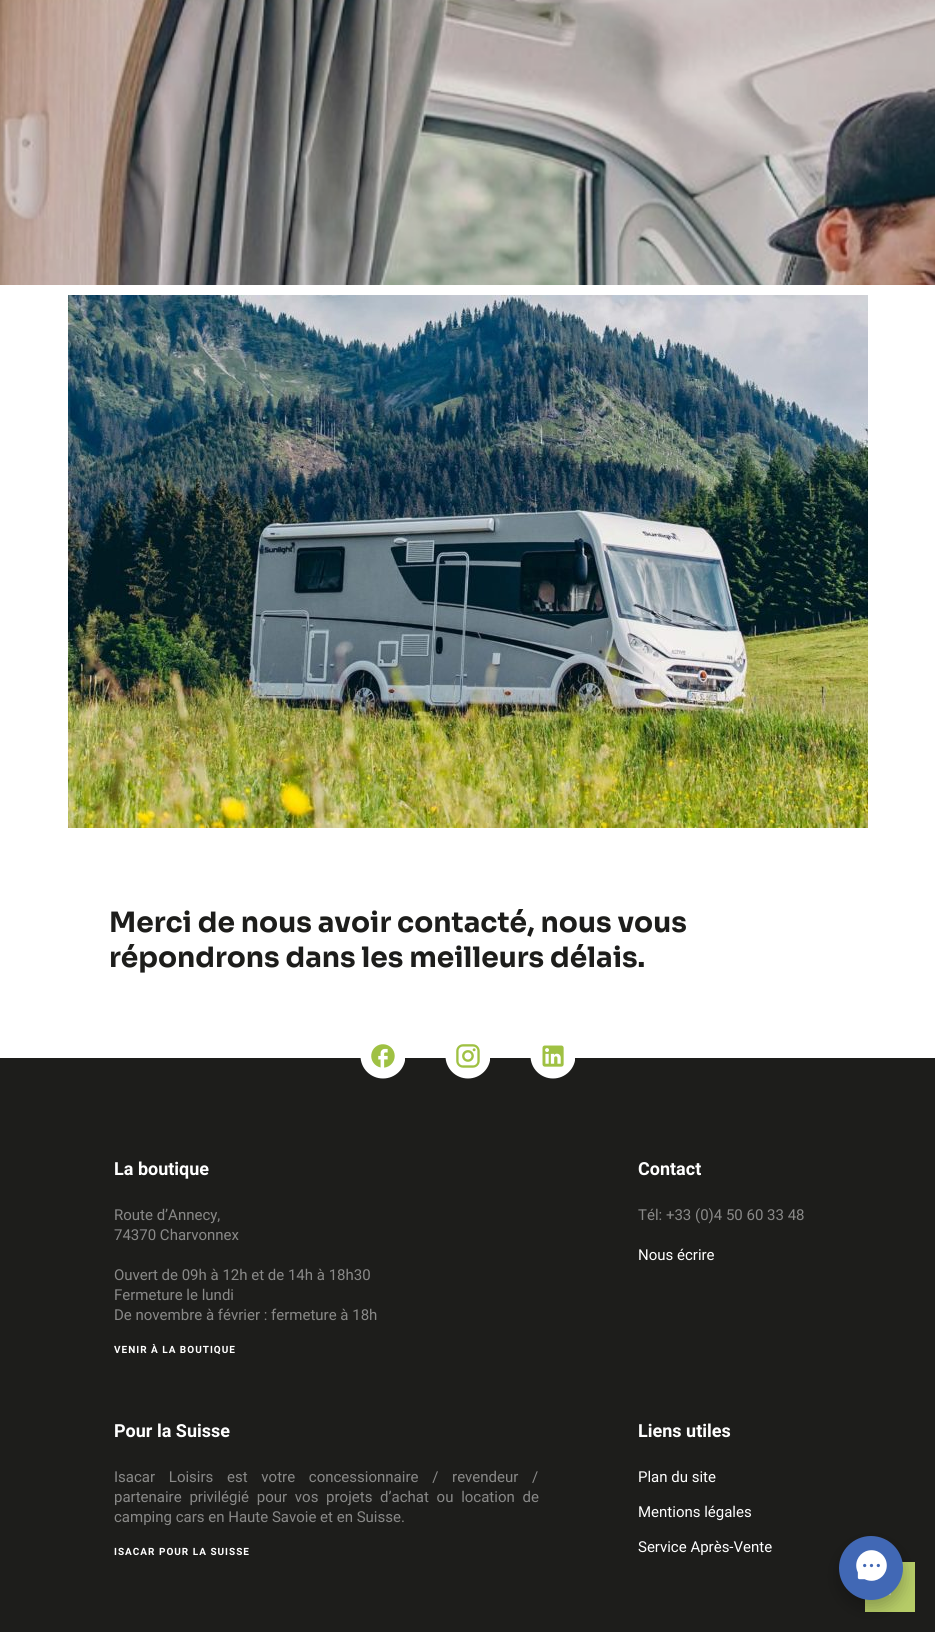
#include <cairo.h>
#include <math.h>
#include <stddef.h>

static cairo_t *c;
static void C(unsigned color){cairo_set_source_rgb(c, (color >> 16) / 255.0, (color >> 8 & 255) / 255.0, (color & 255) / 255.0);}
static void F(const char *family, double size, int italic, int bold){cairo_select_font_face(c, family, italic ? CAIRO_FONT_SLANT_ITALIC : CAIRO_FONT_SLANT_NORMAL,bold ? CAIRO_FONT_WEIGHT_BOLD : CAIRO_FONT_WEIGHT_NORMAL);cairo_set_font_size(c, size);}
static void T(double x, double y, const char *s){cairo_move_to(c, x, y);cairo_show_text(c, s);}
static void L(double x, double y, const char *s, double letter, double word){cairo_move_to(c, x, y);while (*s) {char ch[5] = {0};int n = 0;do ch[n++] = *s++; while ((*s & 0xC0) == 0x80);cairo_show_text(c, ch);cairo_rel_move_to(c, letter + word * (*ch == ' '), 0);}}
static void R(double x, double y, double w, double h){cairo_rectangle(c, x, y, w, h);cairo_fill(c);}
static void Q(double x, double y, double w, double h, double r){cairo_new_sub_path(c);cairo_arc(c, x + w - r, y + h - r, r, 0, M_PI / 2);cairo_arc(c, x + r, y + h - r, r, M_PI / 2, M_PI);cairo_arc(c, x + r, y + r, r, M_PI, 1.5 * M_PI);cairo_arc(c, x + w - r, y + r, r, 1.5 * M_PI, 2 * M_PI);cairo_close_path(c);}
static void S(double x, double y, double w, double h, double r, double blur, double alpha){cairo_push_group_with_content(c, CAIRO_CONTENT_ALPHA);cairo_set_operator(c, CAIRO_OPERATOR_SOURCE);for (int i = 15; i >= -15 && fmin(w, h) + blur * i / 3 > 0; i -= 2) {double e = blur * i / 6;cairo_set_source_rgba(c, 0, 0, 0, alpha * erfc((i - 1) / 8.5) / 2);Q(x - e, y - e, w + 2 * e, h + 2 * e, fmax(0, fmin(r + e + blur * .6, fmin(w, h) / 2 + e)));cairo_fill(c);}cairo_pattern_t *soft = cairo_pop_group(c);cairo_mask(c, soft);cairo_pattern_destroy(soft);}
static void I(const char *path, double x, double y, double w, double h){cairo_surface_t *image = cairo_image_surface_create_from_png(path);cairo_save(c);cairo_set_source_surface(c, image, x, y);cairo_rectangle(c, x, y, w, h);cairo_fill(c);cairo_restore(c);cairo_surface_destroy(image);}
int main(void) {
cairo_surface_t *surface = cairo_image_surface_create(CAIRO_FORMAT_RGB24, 935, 1632);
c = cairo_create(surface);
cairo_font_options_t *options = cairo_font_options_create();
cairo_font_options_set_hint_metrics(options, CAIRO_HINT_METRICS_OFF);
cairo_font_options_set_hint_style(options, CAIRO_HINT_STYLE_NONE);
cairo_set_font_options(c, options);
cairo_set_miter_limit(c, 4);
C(0xffffff);
cairo_paint(c);
I("1.png",0,0,935,285);
I("2.png",68,295,800,533);
F("Sora",28,0,1);
C(0x1d1d1b);
T(109,932,"Merci de nous avoir contacté, nous vous");
T(109,967,"répondrons dans les meilleurs délais.");
R(0,1058,935,574);
I("3.png",360,1044,45,35);
I("4.png",445,1044,45,35);
I("5.png",530,1045,45,34);
F("Roboto",18,0,1);
C(0xffffff);
T(114,1175,"La boutique");
F("Roboto",15,0,0);
C(0x898988);
T(114,1220,"Route d’Annecy,");
T(114,1240,"74370 Charvonnex");
T(114,1280,"Ouvert de 09h à 12h et de 14h à 18h30");
T(114,1300,"Fermeture le lundi");
T(114,1320,"De novembre à février : fermeture à 18h");
F("Roboto",10,0,1);
C(0xffffff);
L(114,1353,"VENIR À LA BOUTIQUE",1,0);
F("Roboto",18,0,1);
T(638,1175,"Contact");
F("Roboto",15,0,0);
C(0x898988);
T(638,1220,"Tél: +33 (0)4 50 60 33 48");
C(0xffffff);
T(638,1260,"Nous écrire");
F("Roboto",18,0,1);
T(114,1437,"Pour la Suisse");
F("Roboto",15,0,0);
C(0x898988);
L(114,1482,"Isacar Loisirs est votre concessionnaire / revendeur /",0,10);
L(114,1502,"partenaire privilégié pour vos projets d’achat ou location de",0,4);
T(114,1522,"camping cars en Haute Savoie et en Suisse.");
F("Roboto",10,0,1);
C(0xffffff);
L(114,1555,"ISACAR POUR LA SUISSE",1,0);
F("Roboto",18,0,1);
T(638,1437,"Liens utiles");
F("Roboto",15,0,0);
T(638,1482,"Plan du site");
T(638,1517,"Mentions légales");
T(638,1552,"Service Après-Vente");
C(0xb6cc67);
R(865,1562,50,50);
I("6.png",889,1593,2,3);
C(0x000000);
S(839,1544,64,64,32,8,.24);
C(0x4168b5);
cairo_arc(c,871,1568,32,0,2 * M_PI);
cairo_fill(c);
I("7.png",856,1550,31,31);
cairo_surface_write_to_png(surface, "o.png");
cairo_font_options_destroy(options);
cairo_destroy(c);
cairo_surface_destroy(surface);
return 0;
}
